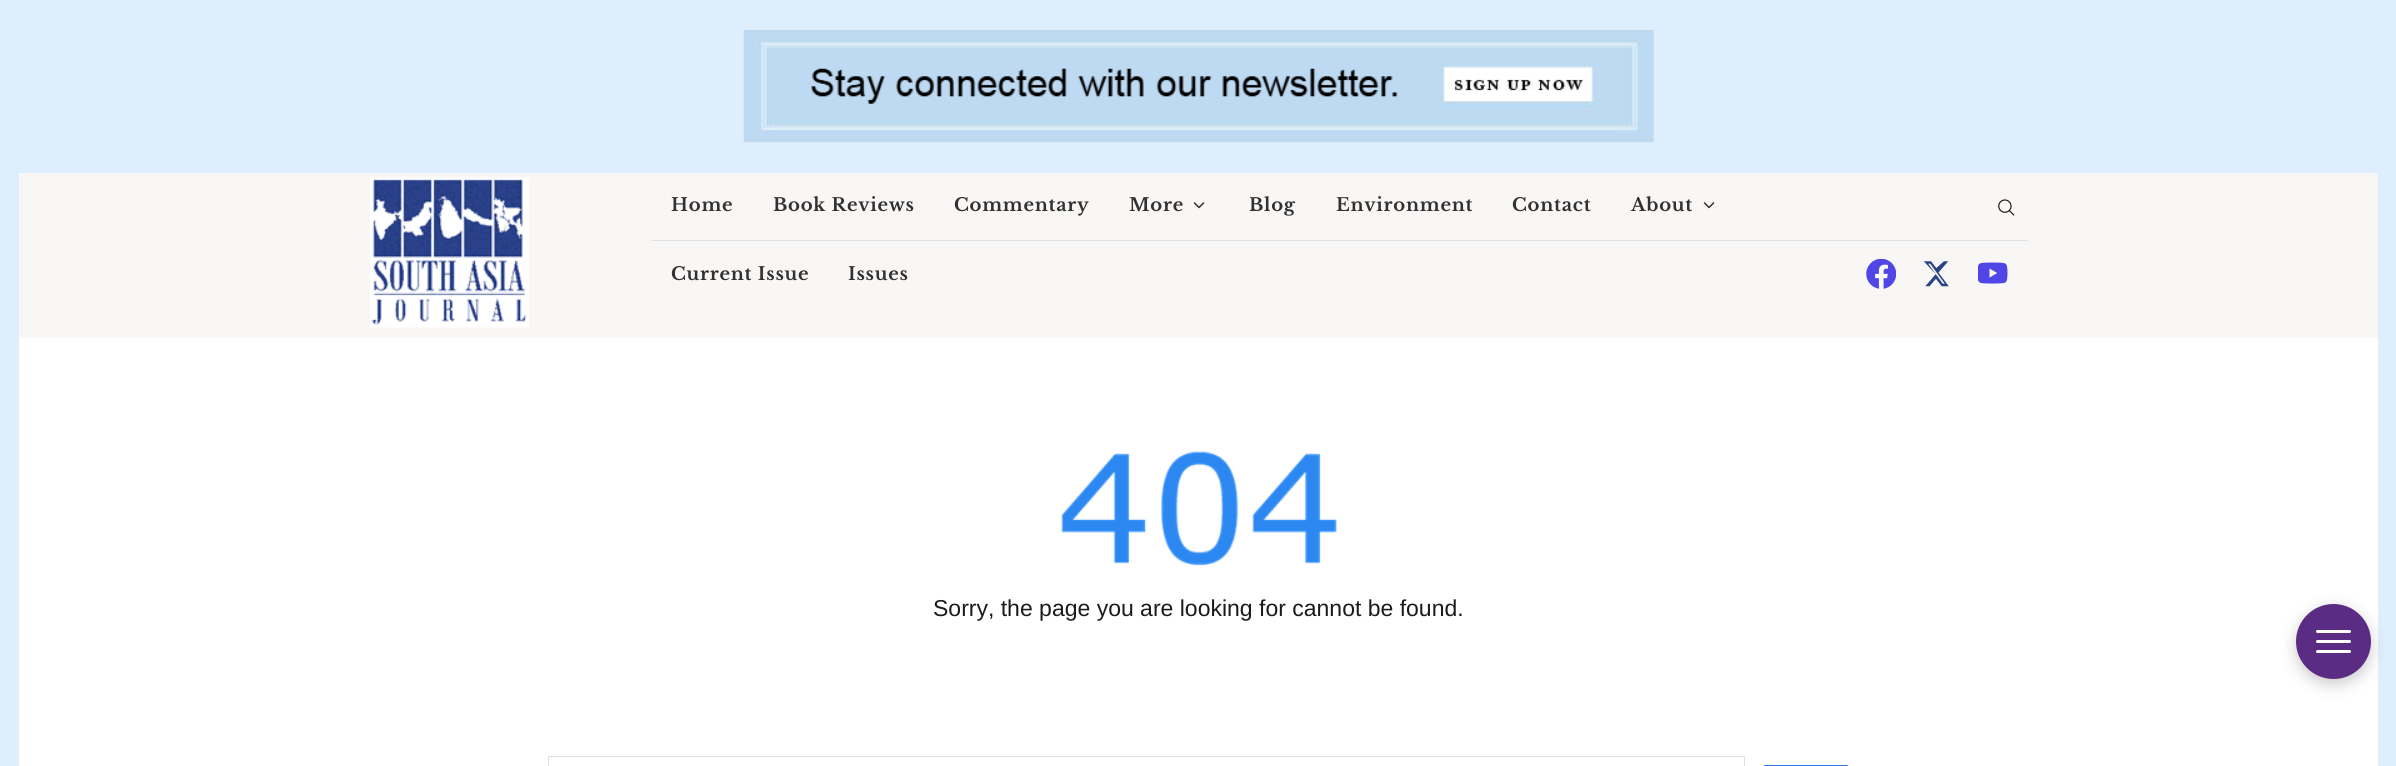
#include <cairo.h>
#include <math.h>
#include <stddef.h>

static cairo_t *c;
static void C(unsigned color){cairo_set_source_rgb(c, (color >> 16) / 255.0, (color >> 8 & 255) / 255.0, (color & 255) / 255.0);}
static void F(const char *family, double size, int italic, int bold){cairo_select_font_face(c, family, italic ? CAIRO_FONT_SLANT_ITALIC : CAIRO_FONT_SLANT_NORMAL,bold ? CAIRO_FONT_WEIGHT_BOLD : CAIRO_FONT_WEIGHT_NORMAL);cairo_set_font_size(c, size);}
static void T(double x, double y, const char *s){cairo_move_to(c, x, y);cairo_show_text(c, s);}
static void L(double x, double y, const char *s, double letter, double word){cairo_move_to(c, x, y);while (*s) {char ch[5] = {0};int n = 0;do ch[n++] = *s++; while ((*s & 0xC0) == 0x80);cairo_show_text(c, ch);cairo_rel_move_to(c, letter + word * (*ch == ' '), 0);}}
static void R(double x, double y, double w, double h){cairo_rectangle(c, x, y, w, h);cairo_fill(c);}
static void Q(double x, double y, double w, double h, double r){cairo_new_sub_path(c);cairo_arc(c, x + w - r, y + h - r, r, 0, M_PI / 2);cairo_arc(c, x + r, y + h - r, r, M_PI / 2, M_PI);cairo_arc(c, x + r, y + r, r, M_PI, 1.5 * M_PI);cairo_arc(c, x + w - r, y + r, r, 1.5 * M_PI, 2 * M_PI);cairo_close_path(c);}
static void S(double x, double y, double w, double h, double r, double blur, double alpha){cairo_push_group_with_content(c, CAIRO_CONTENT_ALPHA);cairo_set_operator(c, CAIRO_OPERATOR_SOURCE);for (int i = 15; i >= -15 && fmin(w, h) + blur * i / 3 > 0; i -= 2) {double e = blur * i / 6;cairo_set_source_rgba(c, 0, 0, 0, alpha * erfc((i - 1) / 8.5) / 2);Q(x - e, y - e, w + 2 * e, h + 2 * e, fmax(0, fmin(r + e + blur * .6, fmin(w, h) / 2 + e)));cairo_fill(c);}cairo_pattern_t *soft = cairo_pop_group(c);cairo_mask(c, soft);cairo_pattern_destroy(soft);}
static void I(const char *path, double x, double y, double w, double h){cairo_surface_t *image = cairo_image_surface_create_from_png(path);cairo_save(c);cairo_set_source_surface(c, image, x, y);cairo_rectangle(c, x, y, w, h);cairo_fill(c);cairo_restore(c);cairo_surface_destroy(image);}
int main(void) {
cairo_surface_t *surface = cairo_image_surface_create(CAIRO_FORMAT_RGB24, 2396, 766);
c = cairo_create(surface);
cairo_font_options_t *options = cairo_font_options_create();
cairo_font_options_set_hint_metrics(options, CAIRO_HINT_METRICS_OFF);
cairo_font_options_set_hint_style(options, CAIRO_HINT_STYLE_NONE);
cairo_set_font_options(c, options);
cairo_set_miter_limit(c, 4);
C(0xffffff);
cairo_paint(c);
C(0xdfeefc);
R(2378,0,18,766);
R(0,0,19,766);
R(19,0,2359,173);
C(0xf8f9fa);
R(744,30,910,113);
I("1.png",743,30,911,113);
C(0xf9f7f5);
R(19,173,2359,165);
I("2.png",370,177,159,151);
C(0xdee2e6);
R(651,240,1377,1);
F("Libre Baskerville",18,0,1);
C(0x323131);
L(671,211,"Home",.75,0);
L(773,211,"Book Reviews",.75,0);
L(954,211,"Commentary",.75,0);
L(1129,211,"More",.75,0);
cairo_new_path(c);
cairo_move_to(c,1194.5,203);
cairo_line_to(c,1199,207.5);
cairo_line_to(c,1203.5,203);
cairo_set_line_width(c,1.5);
cairo_set_line_cap(c,CAIRO_LINE_CAP_ROUND);
cairo_set_line_join(c,CAIRO_LINE_JOIN_ROUND);
cairo_stroke(c);
L(1249,211,"Blog",.75,0);
L(1336,211,"Environment",.75,0);
L(1512,211,"Contact",.75,0);
L(1631,211,"About",.75,0);
cairo_new_path(c);
cairo_move_to(c,1704.5,203);
cairo_line_to(c,1709,207.5);
cairo_line_to(c,1713.5,203);
cairo_stroke(c);
I("3.png",1998,199,17,17);
L(671,280,"Current Issue",.75,0);
L(848,280,"Issues",.75,0);
I("4.png",1866,259,30,30);
I("5.png",1923,261,26,26);
I("6.png",1978,262,30,22);
I("7.png",1061,451,277,115);
F("Liberation Sans",23,0,0);
C(0x1b1b1b);
T(933,616,"Sorry, the page you are looking for cannot be found.");
cairo_rectangle(c,548.5,756.5,1196,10);
C(0xdfe1e5);
cairo_set_line_width(c,1);
cairo_set_line_cap(c,CAIRO_LINE_CAP_BUTT);
cairo_set_line_join(c,CAIRO_LINE_JOIN_MITER);
cairo_stroke(c);
Q(1763.5,765.5,85,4,2);
C(0x3079ed);
cairo_stroke(c);
C(0x000000);
S(2296,609,75,75,37.5,7.5,.2);
C(0x5b2c83);
cairo_arc(c,2333.5,641.5,37.5,0,2 * M_PI);
cairo_fill(c);
C(0xffffff);
Q(2316,630,35,3,1.5);
cairo_fill(c);
Q(2316,640,35,3,1.5);
cairo_fill(c);
Q(2316,650,35,3,1.5);
cairo_fill(c);
cairo_surface_write_to_png(surface, "o.png");
cairo_font_options_destroy(options);
cairo_destroy(c);
cairo_surface_destroy(surface);
return 0;
}
